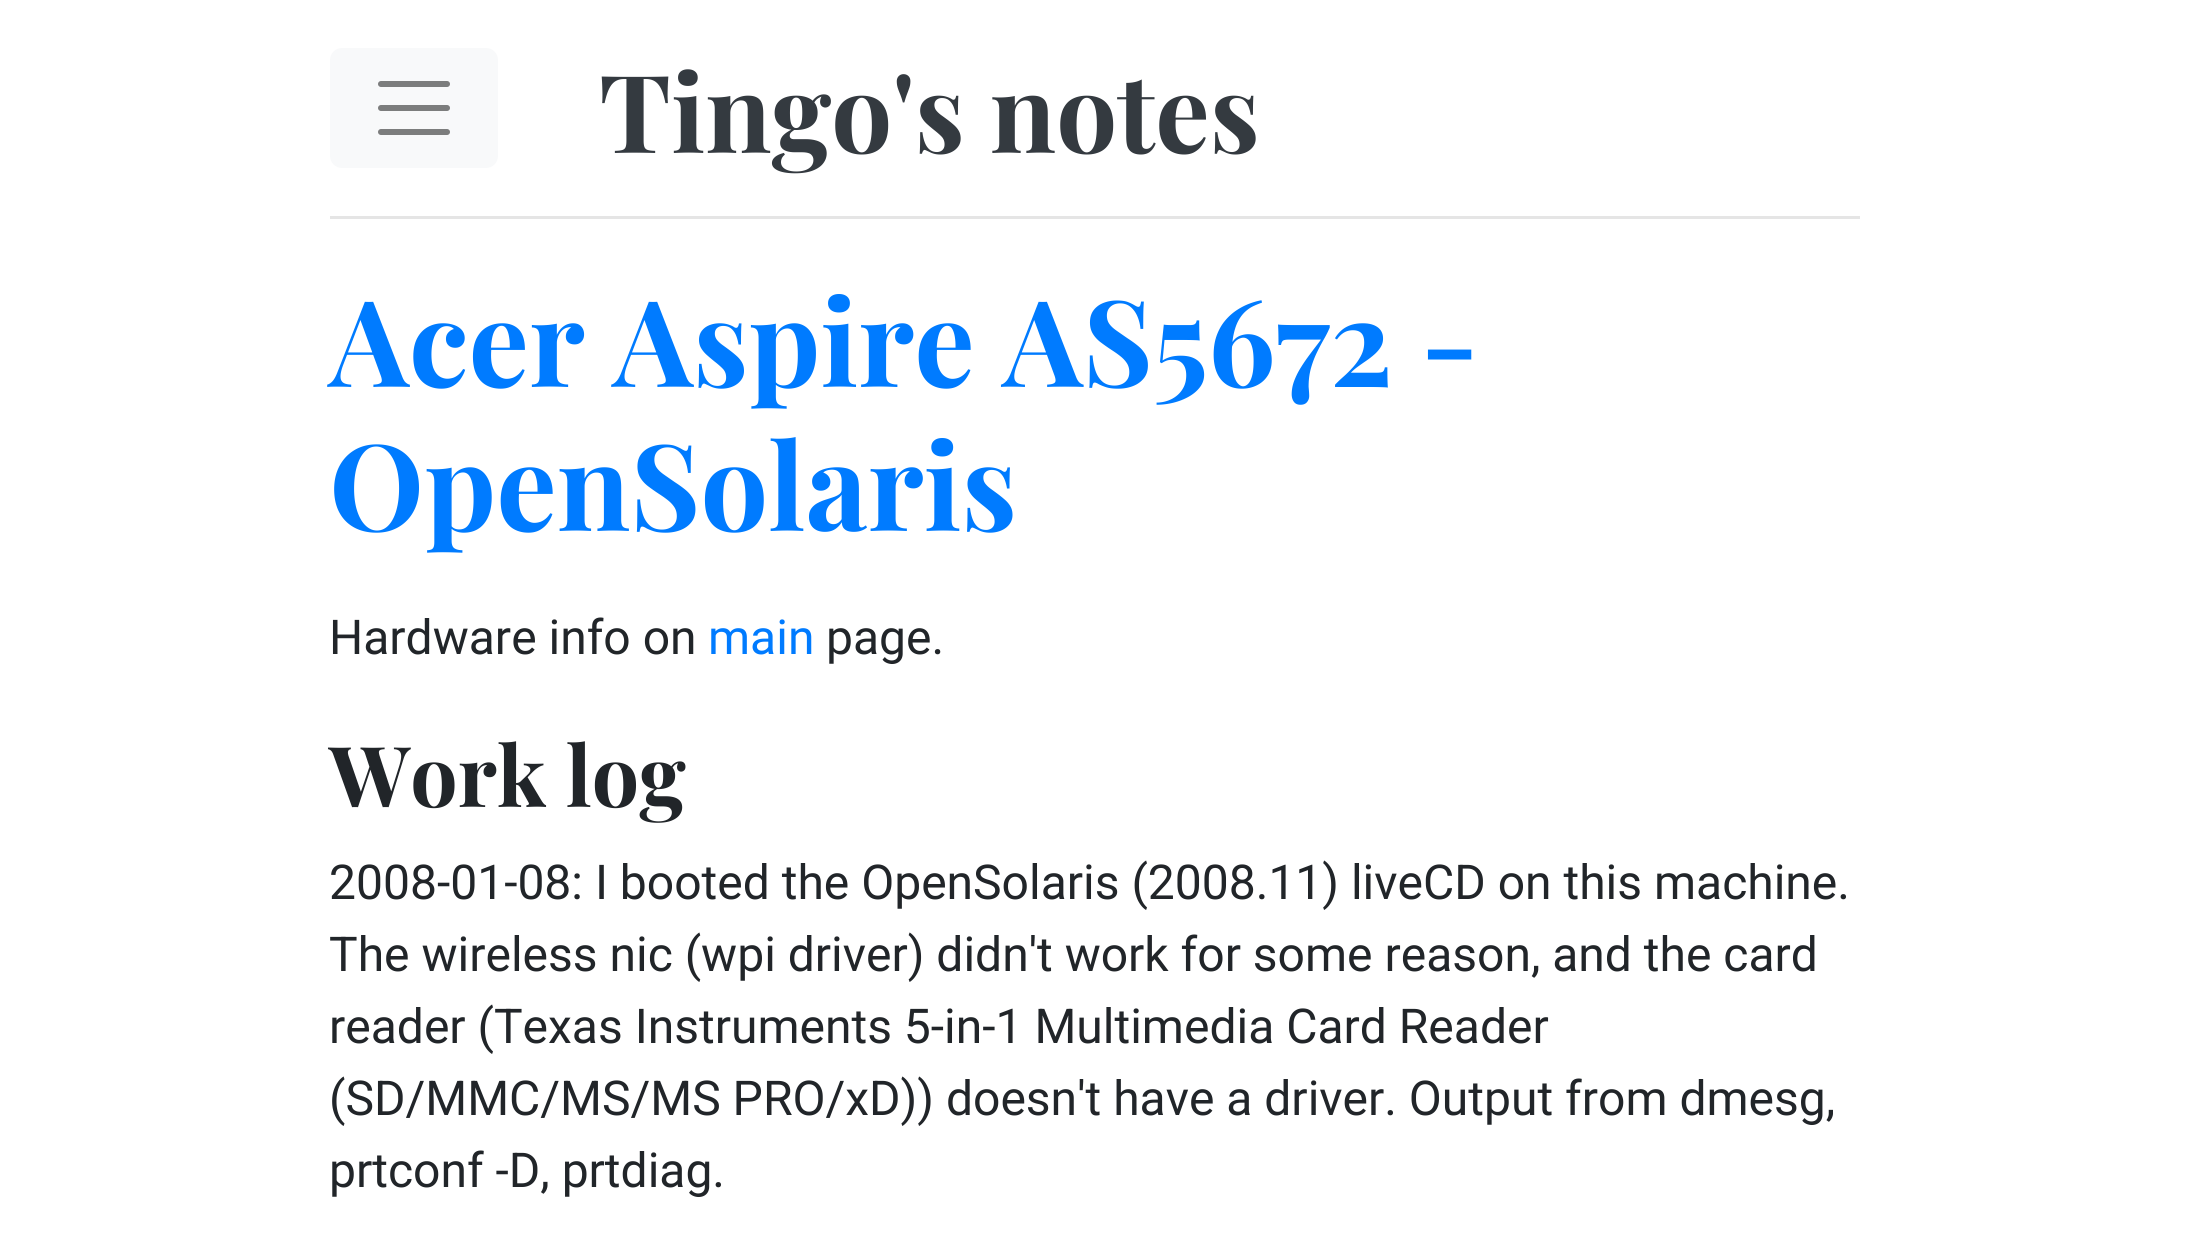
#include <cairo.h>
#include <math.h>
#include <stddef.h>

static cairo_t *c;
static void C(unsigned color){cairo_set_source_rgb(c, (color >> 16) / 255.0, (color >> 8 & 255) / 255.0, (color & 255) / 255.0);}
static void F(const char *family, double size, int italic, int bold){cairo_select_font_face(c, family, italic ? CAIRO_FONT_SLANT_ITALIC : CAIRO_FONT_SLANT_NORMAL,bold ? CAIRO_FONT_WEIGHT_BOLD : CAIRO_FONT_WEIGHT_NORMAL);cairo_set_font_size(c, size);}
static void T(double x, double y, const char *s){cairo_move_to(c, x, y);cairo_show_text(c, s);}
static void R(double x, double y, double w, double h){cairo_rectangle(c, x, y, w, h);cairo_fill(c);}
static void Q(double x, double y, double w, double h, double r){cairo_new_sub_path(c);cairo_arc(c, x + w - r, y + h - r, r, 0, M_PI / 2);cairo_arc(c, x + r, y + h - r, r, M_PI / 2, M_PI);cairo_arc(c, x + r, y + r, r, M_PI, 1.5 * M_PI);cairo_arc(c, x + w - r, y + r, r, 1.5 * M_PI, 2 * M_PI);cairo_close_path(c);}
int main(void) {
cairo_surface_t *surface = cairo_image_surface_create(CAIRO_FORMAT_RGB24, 2185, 1236);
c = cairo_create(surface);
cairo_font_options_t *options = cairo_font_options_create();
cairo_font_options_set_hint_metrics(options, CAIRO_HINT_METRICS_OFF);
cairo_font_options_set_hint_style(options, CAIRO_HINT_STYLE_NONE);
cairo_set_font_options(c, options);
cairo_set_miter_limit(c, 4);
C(0xffffff);
cairo_paint(c);
C(0xe5e5e5);
R(330,216,1530,3);
C(0xf8f9fa);
Q(330,48,168,120,12);
cairo_fill(c);
cairo_new_path(c);
cairo_move_to(c,381,84);
cairo_line_to(c,447,84);
cairo_move_to(c,381,108);
cairo_line_to(c,447,108);
cairo_move_to(c,381,132);
cairo_line_to(c,447,132);
C(0x7c7d7d);
cairo_set_line_width(c,6);
cairo_set_line_cap(c,CAIRO_LINE_CAP_ROUND);
cairo_stroke(c);
F("Playfair Display",108,0,1);
C(0x343a40);
T(599,153,"Tingo's notes");
F("Playfair Display",120,0,1);
C(0x007bff);
T(329,387,"Acer Aspire AS5672 -");
T(329,531,"OpenSolaris");
F("Roboto",48,0,0);
C(0x212529);
T(329,654,"Hardware info on");
C(0x007bff);
T(708,654,"main");
C(0x212529);
T(826,654,"page.");
F("Playfair Display",84,0,1);
T(329,807,"Work log");
F("Roboto",48,0,0);
T(329,899,"2008-01-08: I booted the OpenSolaris (2008.11) liveCD on this machine.");
T(329,971,"The wireless nic (wpi driver) didn't work for some reason, and the card");
T(329,1043,"reader (Texas Instruments 5-in-1 Multimedia Card Reader");
T(329,1115,"(SD/MMC/MS/MS PRO/xD)) doesn't have a driver. Output from dmesg,");
T(329,1187,"prtconf -D, prtdiag.");
cairo_surface_write_to_png(surface, "o.png");
cairo_font_options_destroy(options);
cairo_destroy(c);
cairo_surface_destroy(surface);
return 0;
}
